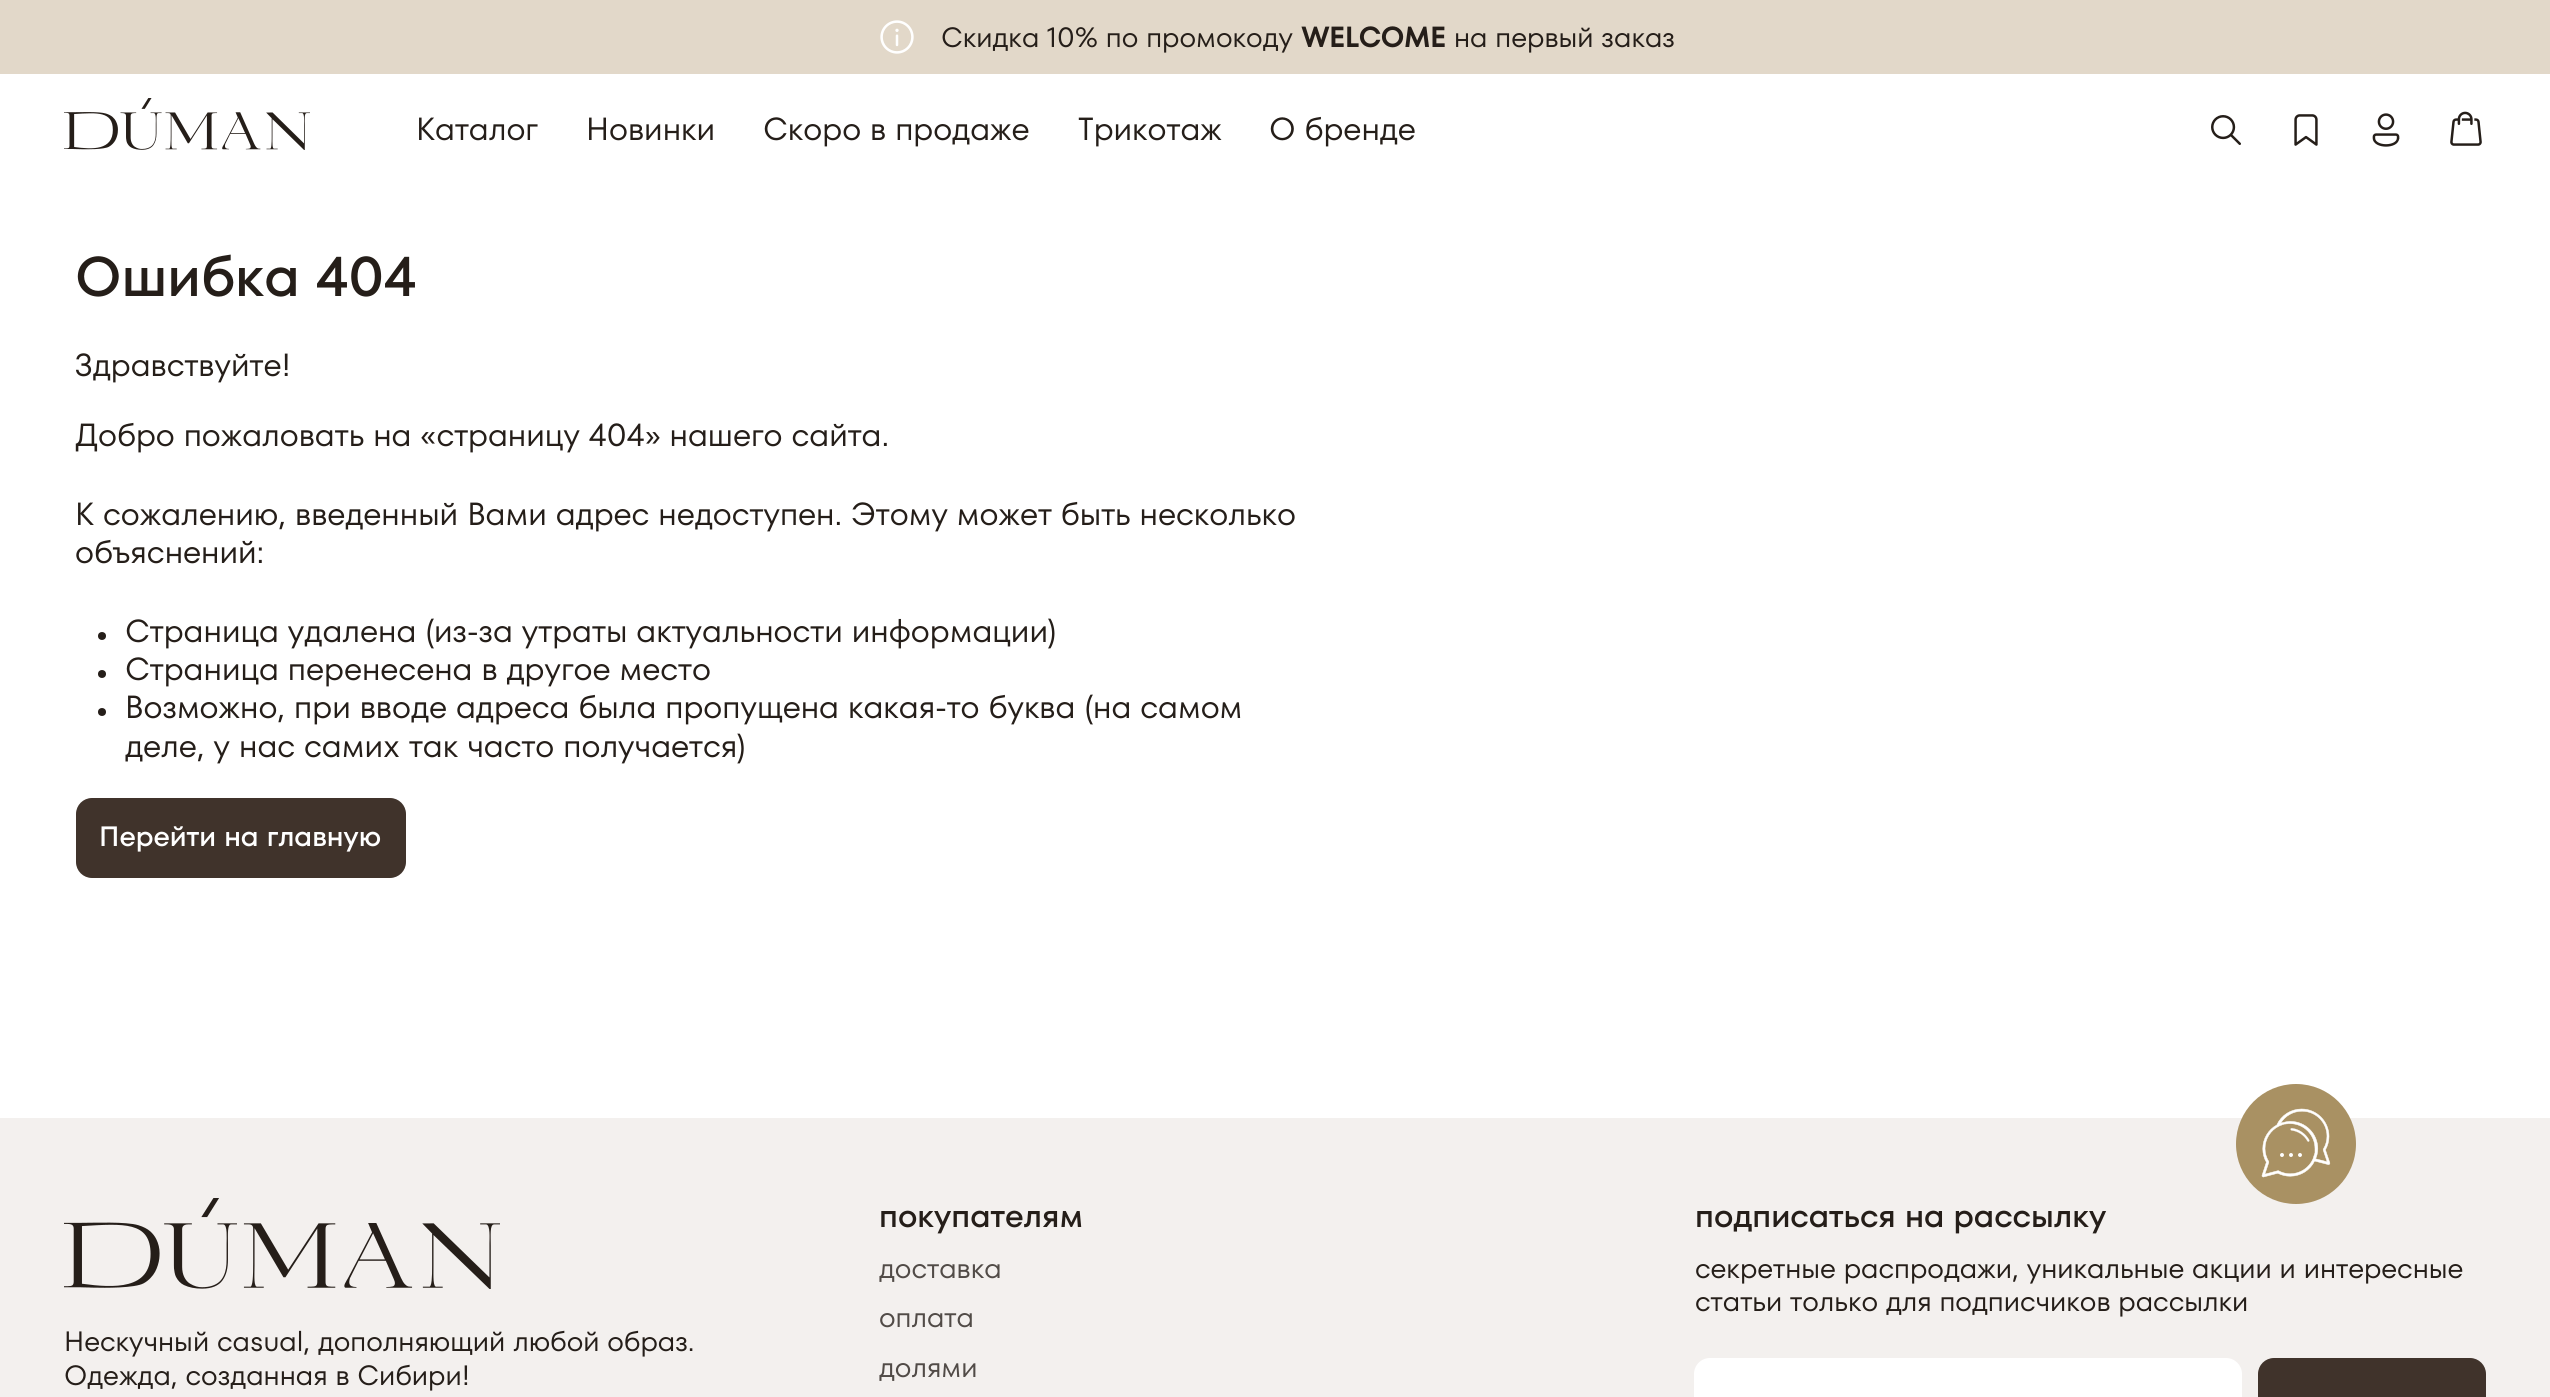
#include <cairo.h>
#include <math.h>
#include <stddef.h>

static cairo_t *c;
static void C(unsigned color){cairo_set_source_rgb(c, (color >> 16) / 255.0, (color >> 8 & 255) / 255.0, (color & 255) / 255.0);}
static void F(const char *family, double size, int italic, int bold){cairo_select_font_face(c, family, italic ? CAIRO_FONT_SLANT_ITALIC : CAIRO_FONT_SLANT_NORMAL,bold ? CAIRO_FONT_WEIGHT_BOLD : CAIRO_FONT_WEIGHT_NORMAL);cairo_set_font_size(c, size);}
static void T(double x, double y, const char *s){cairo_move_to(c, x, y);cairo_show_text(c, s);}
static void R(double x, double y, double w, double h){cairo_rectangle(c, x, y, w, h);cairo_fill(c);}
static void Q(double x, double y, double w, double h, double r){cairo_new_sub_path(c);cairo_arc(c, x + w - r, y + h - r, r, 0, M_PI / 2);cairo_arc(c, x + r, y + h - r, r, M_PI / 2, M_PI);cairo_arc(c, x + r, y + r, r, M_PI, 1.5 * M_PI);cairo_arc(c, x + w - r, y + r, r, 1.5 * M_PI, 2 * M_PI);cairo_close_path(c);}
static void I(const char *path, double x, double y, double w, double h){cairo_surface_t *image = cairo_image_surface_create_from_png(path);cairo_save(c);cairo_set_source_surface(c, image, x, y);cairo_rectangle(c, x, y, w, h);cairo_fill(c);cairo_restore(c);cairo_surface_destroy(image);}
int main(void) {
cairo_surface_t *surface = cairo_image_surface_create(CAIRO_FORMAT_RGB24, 2550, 1397);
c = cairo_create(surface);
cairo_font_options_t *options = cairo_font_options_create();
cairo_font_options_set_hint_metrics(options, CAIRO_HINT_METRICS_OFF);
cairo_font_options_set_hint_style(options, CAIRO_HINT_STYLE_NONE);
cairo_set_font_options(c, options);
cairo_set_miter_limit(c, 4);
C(0xffffff);
cairo_paint(c);
C(0xe2d8c9);
R(0,0,2550,74);
I("1.png",880,20,34,34);
F("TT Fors",28,0,0);
C(0x251e19);
T(941,47,"Скидка 10% по промокоду");
F("TT Fors",28,0,1);
T(1301,47,"WELCOME");
F("TT Fors",28,0,0);
T(1454,47,"на первый заказ");
I("2.png",64,98,246,52);
F("TT Fors",32,0,0);
T(416,140,"Каталог");
T(586,140,"Новинки");
T(763,140,"Скоро в продаже");
T(1078,140,"Трикотаж");
T(1269,140,"О бренде");
I("3.png",2211,115,30,30);
I("4.png",2294,114,24,32);
I("5.png",2372,113,28,34);
I("6.png",2450,111,32,35);
F("TT Fors Medium",56,0,0);
T(75,296,"Ошибка 404");
F("TT Fors",32,0,0);
T(75,376,"Здравствуйте!");
T(75,446,"Добро пожаловать на «страницу 404» нашего сайта.");
T(75,525,"К сожалению, введенный Вами адрес недоступен. Этому может быть несколько");
T(75,563,"объяснений:");
cairo_new_path(c);
cairo_arc(c,102,636,4,0,2 * M_PI);
cairo_fill(c);
T(125,642,"Страница удалена (из-за утраты актуальности информации)");
cairo_new_path(c);
cairo_arc(c,102,674,4,0,2 * M_PI);
cairo_fill(c);
T(125,680,"Страница перенесена в другое место");
cairo_new_path(c);
cairo_arc(c,102,712,4,0,2 * M_PI);
cairo_fill(c);
T(125,718,"Возможно, при вводе адреса была пропущена какая-то буква (на самом");
T(125,757,"деле, у нас самих так часто получается)");
C(0x40332b);
Q(77,799,328,78,15);
cairo_fill_preserve(c);
cairo_stroke(c);
F("TT Fors Medium",28,0,0);
C(0xffffff);
T(99,846,"Перейти на главную");
C(0xf3f0ee);
R(0,1118,2550,279);
F("TT Fors Medium",32,0,0);
C(0x251e19);
T(879,1227,"покупателям");
F("TT Fors",28,0,0);
C(0x514b47);
T(879,1278,"доставка");
T(879,1327,"оплата");
T(879,1377,"долями");
F("TT Fors Medium",32,0,0);
C(0x251e19);
T(1695,1227,"подписаться на рассылку");
F("TT Fors",28,0,0);
T(1695,1278,"секретные распродажи, уникальные акции и интересные");
T(1695,1311,"статьи только для подписчиков рассылки");
C(0xffffff);
Q(1694,1358,548,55,16);
cairo_fill(c);
C(0x40332b);
Q(2259,1359,226,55,15);
cairo_fill_preserve(c);
cairo_stroke(c);
I("7.png",64,1198,436,91);
C(0x251e19);
T(64,1351,"Нескучный casual, дополняющий любой образ.");
T(64,1385,"Одежда, созданная в Сибири!");
C(0xa99163);
cairo_new_path(c);
cairo_arc(c,2296,1144,60,0,2 * M_PI);
cairo_fill(c);
I("8.png",2261,1108,70,70);
cairo_surface_write_to_png(surface, "o.png");
cairo_font_options_destroy(options);
cairo_destroy(c);
cairo_surface_destroy(surface);
return 0;
}
